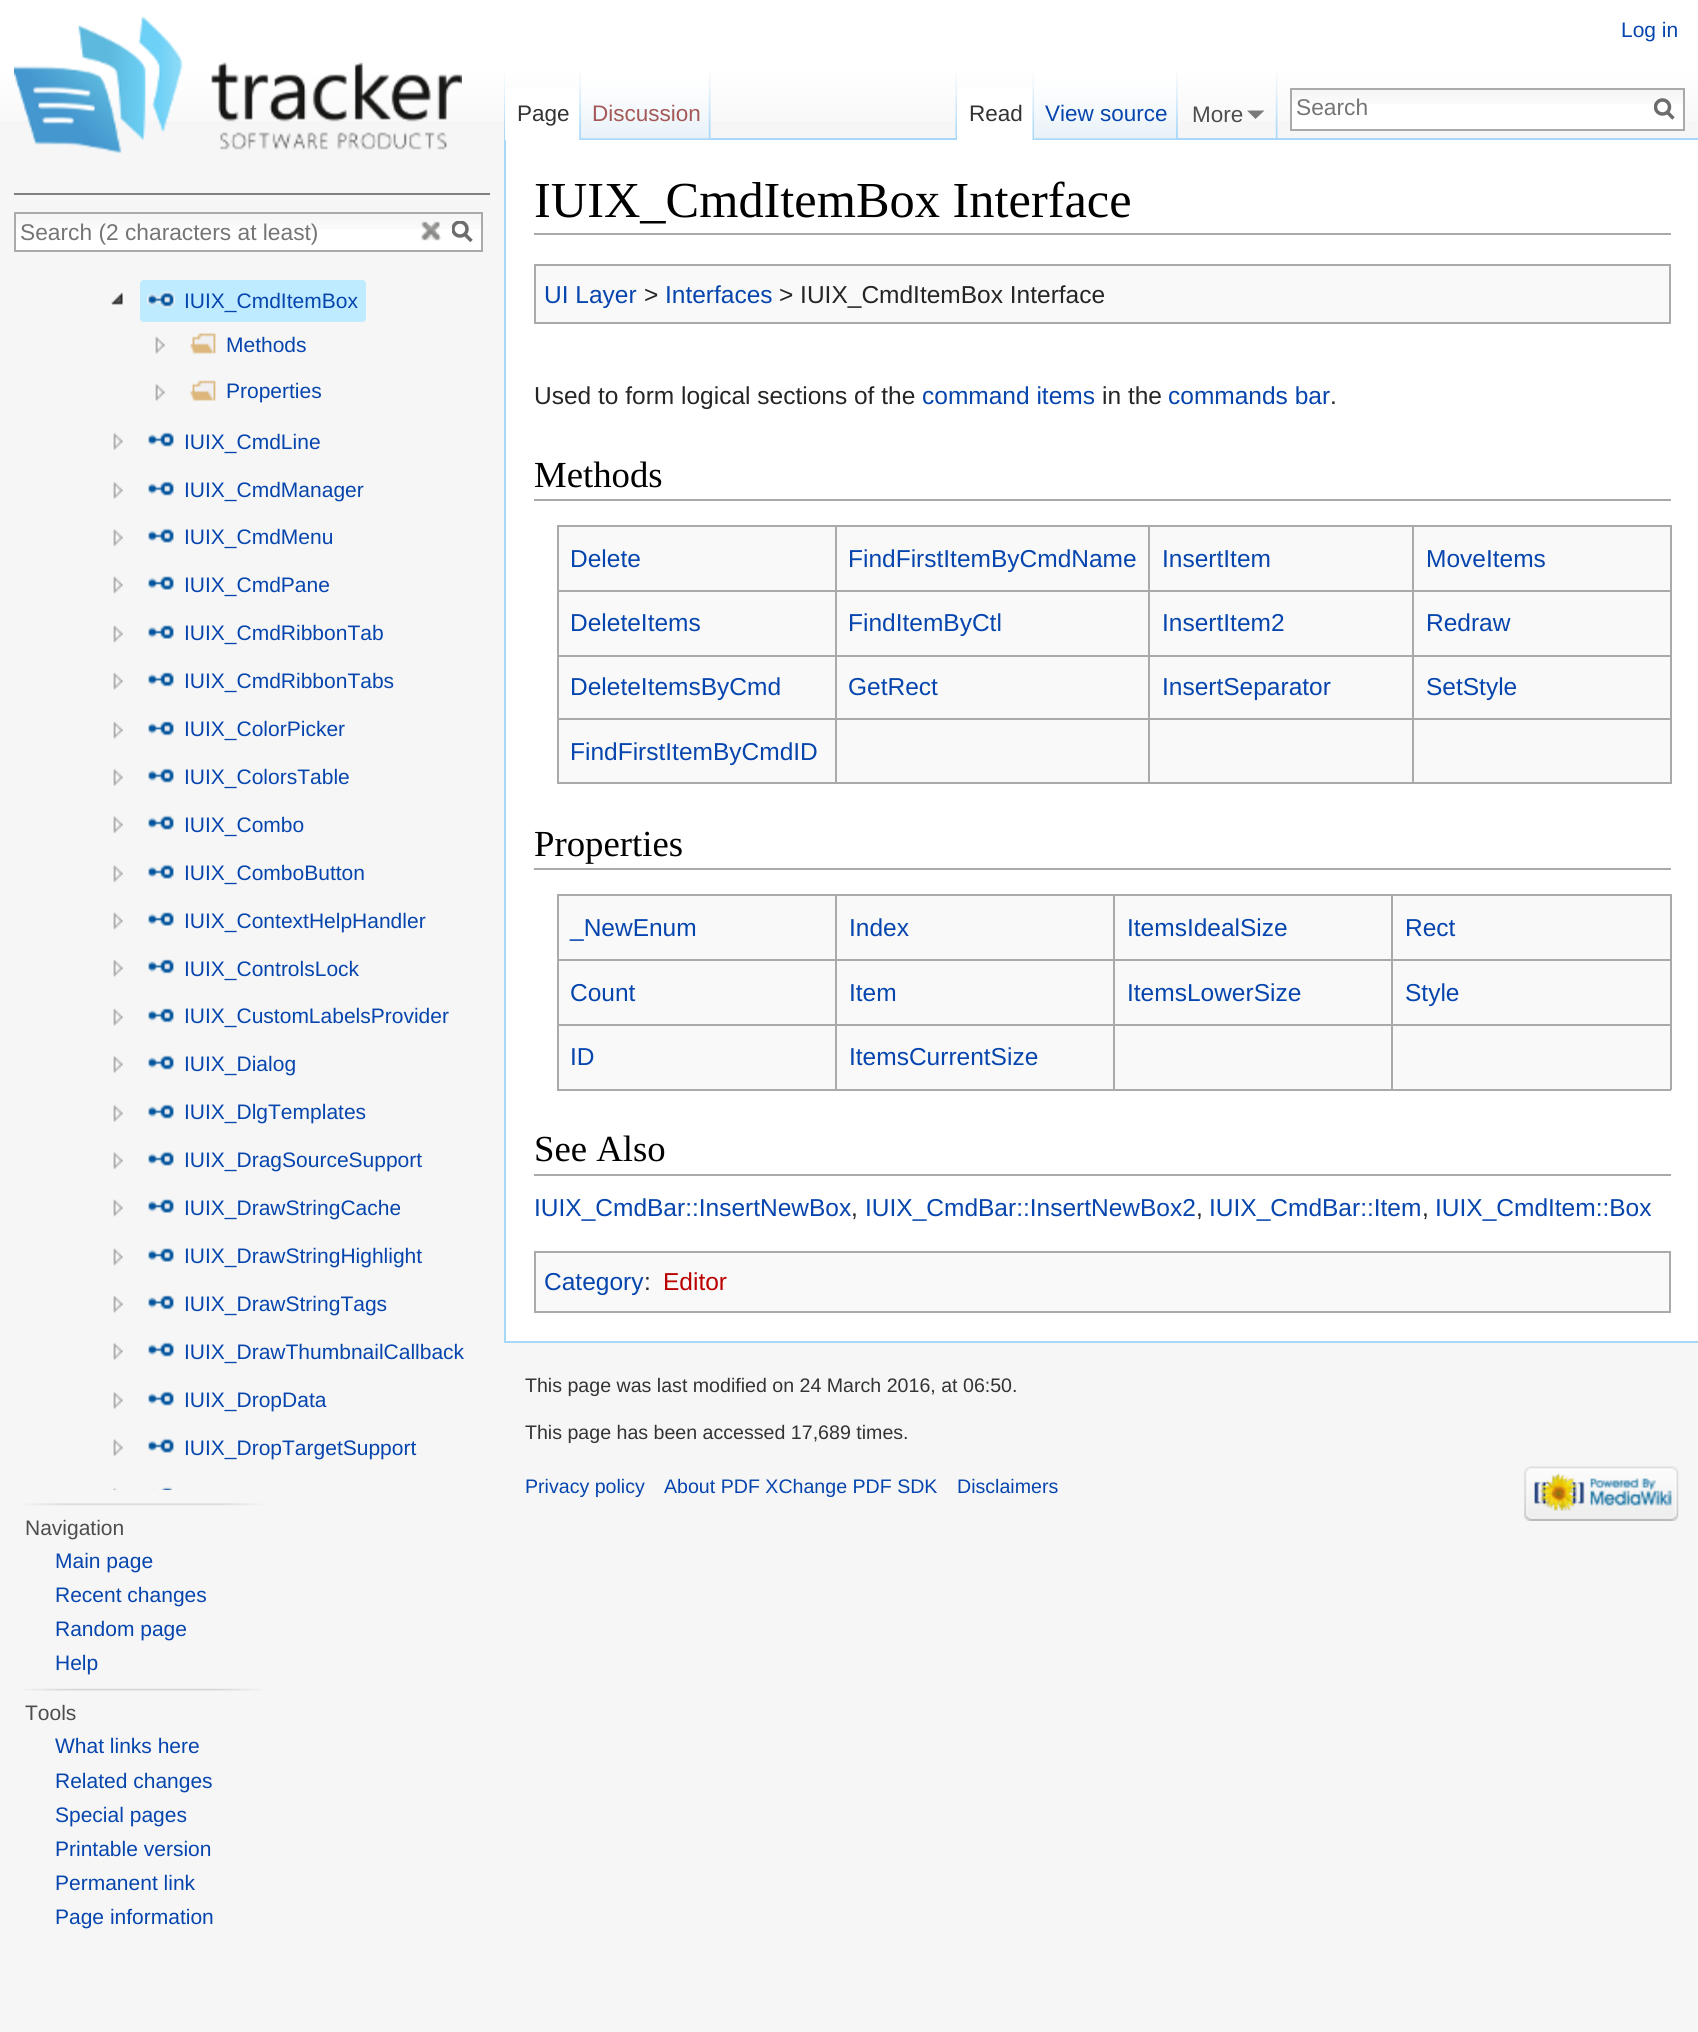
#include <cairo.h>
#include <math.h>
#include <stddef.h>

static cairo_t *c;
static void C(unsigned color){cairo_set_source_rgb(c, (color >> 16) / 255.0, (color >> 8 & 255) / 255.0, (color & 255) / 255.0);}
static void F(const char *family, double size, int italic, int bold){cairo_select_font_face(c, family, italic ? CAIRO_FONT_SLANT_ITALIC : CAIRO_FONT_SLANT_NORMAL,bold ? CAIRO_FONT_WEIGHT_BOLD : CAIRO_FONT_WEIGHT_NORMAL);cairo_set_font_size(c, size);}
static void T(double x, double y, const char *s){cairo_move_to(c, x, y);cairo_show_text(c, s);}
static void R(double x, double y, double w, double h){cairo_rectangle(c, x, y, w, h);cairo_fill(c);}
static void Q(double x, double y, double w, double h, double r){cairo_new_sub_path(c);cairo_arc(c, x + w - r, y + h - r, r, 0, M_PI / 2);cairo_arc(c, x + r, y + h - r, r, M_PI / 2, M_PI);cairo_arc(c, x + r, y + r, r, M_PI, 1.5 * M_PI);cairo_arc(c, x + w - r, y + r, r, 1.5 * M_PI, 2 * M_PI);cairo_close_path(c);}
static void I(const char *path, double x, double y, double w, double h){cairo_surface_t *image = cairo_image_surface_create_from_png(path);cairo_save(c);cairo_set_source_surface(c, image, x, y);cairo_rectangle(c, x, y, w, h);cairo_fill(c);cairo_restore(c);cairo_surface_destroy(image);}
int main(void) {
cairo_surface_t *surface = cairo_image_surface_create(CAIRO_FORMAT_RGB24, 1698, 2032);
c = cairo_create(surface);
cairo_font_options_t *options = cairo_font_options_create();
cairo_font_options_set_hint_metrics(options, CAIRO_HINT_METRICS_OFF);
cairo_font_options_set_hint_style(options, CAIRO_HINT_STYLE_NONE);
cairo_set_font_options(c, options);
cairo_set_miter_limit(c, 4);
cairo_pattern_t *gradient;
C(0xf6f6f6);
cairo_paint(c);
gradient = cairo_pattern_create_linear(850,0,850,140);
cairo_pattern_add_color_stop_rgba(gradient,.5,1,1,1,1);
cairo_pattern_add_color_stop_rgba(gradient,1,0.965,0.965,0.965,1);
cairo_set_source(c,gradient);
cairo_pattern_destroy(gradient);
R(0,0,1698,121);
F("Liberation Sans",21,0,0);
C(0x0645ad);
T(1621,37,"Log in");
I("1.png",504,70,1,68);
C(0xa7d7f9);
R(504,1341,1194,2);
R(504,138,2,1204);
C(0xffffff);
R(505,89,76,51);
I("2.png",579,71,2,69);
F("Liberation Sans",22.5,0,0);
C(0x333333);
T(517,121,"Page");
C(0xf3f3f3);
R(710,70,1,70);
I("3.png",581,70,130,70);
I("4.png",708,71,3,69);
C(0xa55858);
T(592,121,"Discussion");
I("5.png",955,70,2,68);
I("6.png",1177,70,1,68);
C(0xa7d7f9);
R(711,138,987,2);
C(0xffffff);
R(957,89,78,51);
I("7.png",1032,71,3,69);
C(0x333333);
T(969,121,"Read");
I("8.png",1034,70,144,70);
I("9.png",1176,71,2,69);
C(0x0645ad);
T(1045,121,"View source");
I("10.png",1275,70,3,68);
C(0x4d4d4d);
T(1192,122,"More");
C(0x797979);
cairo_new_path(c);
cairo_move_to(c,1264.5,110.5);
cairo_line_to(c,1255.5,119);
cairo_line_to(c,1247,110.5);
cairo_close_path(c);
cairo_fill(c);
C(0xffffff);
R(1292,104,391,25);
I("11.png",1292,90,391,14);
cairo_rectangle(c,1291,89,393,41);
C(0xaaaaaa);
cairo_stroke(c);
F("Liberation Sans",22.75,0,0);
C(0x757575);
T(1296,115,"Search");
cairo_new_path(c);
cairo_move_to(c,1673.5,118.5);
cairo_line_to(c,1666.5,111.5);
C(0x6c6c6c);
cairo_set_line_width(c,3.5);
cairo_stroke(c);
cairo_save(c);
cairo_rectangle(c,1654,98,21,23);
cairo_clip(c);
cairo_arc(c,1662.5,107,7,0,2 * M_PI);
cairo_stroke(c);
cairo_restore(c);
I("12.png",14,16,448,138);
C(0x808080);
R(14,193,476,2);
C(0xffffff);
R(16,229,465,21);
I("13.png",16,214,465,15);
cairo_rectangle(c,15,213,467,38);
C(0xaaaaaa);
cairo_set_line_width(c,2);
cairo_stroke(c);
C(0x757575);
T(20,240,"Search (2 characters at least)");
I("14.png",421,221,21,20);
cairo_new_path(c);
cairo_move_to(c,471.5,241);
cairo_line_to(c,464.5,234);
C(0x6c6c6c);
cairo_set_line_width(c,3.5);
cairo_stroke(c);
cairo_save(c);
cairo_rectangle(c,452,221,21,22);
cairo_clip(c);
cairo_arc(c,460,229,7,0,2 * M_PI);
cairo_stroke(c);
cairo_restore(c);
I("15.png",111,292,12,13);
C(0xbeebff);
Q(140,280,226,42,4);
cairo_fill(c);
I("16.png",147,291,28,18);
F("Liberation Sans",21,0,0);
C(0x0645ad);
T(184,308,"IUIX_CmdItemBox");
I("17.png",155,336,10,18);
I("18.png",190,333,26,22);
T(226,352,"Methods");
I("19.png",155,383,10,18);
I("20.png",190,380,26,22);
T(226,398,"Properties");
I("21.png",113,432,10,18);
I("22.png",148,432,26,15);
T(184,449,"IUIX_CmdLine");
I("23.png",113,481,10,18);
I("24.png",148,481,26,15);
T(184,497,"IUIX_CmdManager");
I("25.png",113,529,10,18);
I("26.png",148,528,26,15);
T(184,544,"IUIX_CmdMenu");
I("27.png",113,576,10,18);
I("28.png",148,575,26,15);
T(184,592,"IUIX_CmdPane");
I("27.png",113,625,10,18);
I("28.png",148,624,26,15);
T(184,640,"IUIX_CmdRibbonTab");
I("29.png",113,672,10,18);
I("30.png",148,672,26,15);
T(184,688,"IUIX_CmdRibbonTabs");
I("29.png",113,721,10,18);
I("30.png",148,721,26,15);
T(184,736,"IUIX_ColorPicker");
I("23.png",113,768,10,18);
I("24.png",148,768,26,15);
T(184,784,"IUIX_ColorsTable");
I("25.png",113,816,10,18);
I("26.png",148,815,26,15);
T(184,832,"IUIX_Combo");
I("25.png",113,865,10,18);
I("26.png",148,864,26,15);
T(184,880,"IUIX_ComboButton");
I("27.png",113,912,10,18);
I("28.png",148,911,26,15);
T(184,928,"IUIX_ContextHelpHandler");
I("29.png",113,959,10,18);
I("30.png",148,959,26,15);
T(184,976,"IUIX_ControlsLock");
I("31.png",113,1008,10,18);
I("32.png",148,1008,26,15);
T(184,1023,"IUIX_CustomLabelsProvider");
I("23.png",113,1055,10,18);
I("24.png",148,1055,26,15);
T(184,1071,"IUIX_Dialog");
I("23.png",113,1104,10,18);
I("24.png",148,1104,26,15);
T(184,1119,"IUIX_DlgTemplates");
I("25.png",113,1152,10,18);
I("26.png",148,1151,26,15);
T(184,1167,"IUIX_DragSourceSupport");
I("27.png",113,1199,10,18);
I("28.png",148,1198,26,15);
T(184,1215,"IUIX_DrawStringCache");
I("27.png",113,1248,10,18);
I("28.png",148,1247,26,15);
T(184,1263,"IUIX_DrawStringHighlight");
I("29.png",113,1295,10,18);
I("30.png",148,1295,26,15);
T(184,1311,"IUIX_DrawStringTags");
I("23.png",113,1342,10,18);
I("24.png",148,1342,26,15);
T(184,1359,"IUIX_DrawThumbnailCallback");
I("23.png",113,1391,10,18);
I("24.png",148,1391,26,15);
T(184,1407,"IUIX_DropData");
I("25.png",113,1439,10,18);
I("26.png",148,1438,26,15);
T(184,1455,"IUIX_DropTargetSupport");
I("33.png",113,1488,4,2);
I("34.png",150,1487,23,3);
I("35.png",21,1503,242,3);
C(0x4d4d4d);
T(25,1535,"Navigation");
C(0x0645ad);
T(55,1568,"Main page");
T(55,1602,"Recent changes");
T(55,1636,"Random page");
T(55,1670,"Help");
I("36.png",23,1688,239,3);
C(0x4d4d4d);
T(25,1720,"Tools");
C(0x0645ad);
T(55,1753,"What links here");
T(55,1788,"Related changes");
T(55,1822,"Special pages");
T(55,1856,"Printable version");
T(55,1890,"Permanent link");
T(55,1924,"Page information");
C(0xffffff);
R(506,140,1192,1201);
C(0xaaaaaa);
R(534,233,1137,2);
F("Liberation Serif",50.4,0,0);
C(0x000000);
T(534,217,"IUIX_CmdItemBox Interface");
C(0xf9f9f9);
cairo_rectangle(c,535,265,1135,58);
cairo_fill_preserve(c);
C(0xaaaaaa);
cairo_set_line_width(c,2);
cairo_stroke(c);
F("Liberation Sans",24.5,0,0);
C(0x0645ad);
T(544,303,"UI Layer");
C(0x252525);
T(644,303,">");
C(0x0645ad);
T(665,303,"Interfaces");
C(0x252525);
T(779,303,"> IUIX_CmdItemBox Interface");
T(534,404,"Used to form logical sections of the");
C(0x0645ad);
T(922,404,"command items");
C(0x252525);
T(1102,404,"in the");
C(0x0645ad);
T(1168,404,"commands bar");
C(0x252525);
T(1330,404,".");
C(0xaaaaaa);
R(534,499,1137,2);
F("Liberation Serif",36.75,0,0);
C(0x000000);
T(534,487,"Methods");
C(0xf9f9f9);
R(559,527,1111,255);
C(0xaaaaaa);
R(1412,525,259,2);
R(1412,590,259,2);
R(1412,655,259,2);
R(1412,718,259,2);
R(1670,718,2,66);
R(1412,782,259,2);
R(1412,718,2,66);
R(1148,718,266,2);
R(1412,655,2,64);
R(1148,655,266,2);
R(1412,590,2,66);
R(1148,590,266,2);
R(1412,525,2,67);
R(1148,525,266,2);
R(1148,782,266,2);
R(1148,718,2,66);
R(835,718,315,2);
R(1148,655,2,64);
R(835,655,315,2);
R(1148,590,2,66);
R(835,590,315,2);
R(1148,525,2,67);
R(835,525,315,2);
R(835,782,315,2);
R(835,718,2,66);
R(557,718,280,2);
R(835,655,2,64);
R(557,655,280,2);
R(835,590,2,66);
R(557,590,280,2);
R(835,525,2,67);
R(557,525,280,2);
R(557,782,280,2);
R(557,718,2,66);
R(557,655,2,64);
R(557,590,2,66);
R(557,525,2,67);
F("Liberation Sans",24.5,0,0);
C(0x0645ad);
T(570,567,"Delete");
T(848,567,"FindFirstItemByCmdName");
T(1162,567,"InsertItem");
C(0xaaaaaa);
R(1670,655,2,64);
R(1670,590,2,66);
R(1670,525,2,67);
C(0x0645ad);
T(1426,567,"MoveItems");
T(570,631,"DeleteItems");
T(848,631,"FindItemByCtl");
T(1162,631,"InsertItem2");
T(1426,631,"Redraw");
T(570,695,"DeleteItemsByCmd");
T(848,695,"GetRect");
T(1162,695,"InsertSeparator");
T(1426,695,"SetStyle");
T(570,760,"FindFirstItemByCmdID");
C(0xaaaaaa);
R(534,868,1137,2);
F("Liberation Serif",36.75,0,0);
C(0x000000);
T(534,856,"Properties");
C(0xf9f9f9);
R(559,896,1111,193);
C(0xaaaaaa);
R(1391,894,280,2);
R(1391,959,280,2);
R(1391,1024,280,2);
R(1670,1024,2,66);
R(1391,1089,280,2);
R(1391,1024,2,66);
R(1113,1024,280,2);
R(1391,959,2,67);
R(1113,959,280,2);
R(1391,894,2,67);
R(1113,894,280,2);
R(1113,1089,280,2);
R(1113,1024,2,66);
R(835,1024,280,2);
R(1113,959,2,67);
R(835,959,280,2);
R(1113,894,2,67);
R(835,894,280,2);
R(835,1089,280,2);
R(835,1024,2,66);
R(557,1024,280,2);
R(835,959,2,67);
R(557,959,280,2);
R(835,894,2,67);
R(557,894,280,2);
R(557,1089,280,2);
R(557,1024,2,66);
R(557,959,2,67);
R(557,894,2,67);
F("Liberation Sans",24.5,0,0);
C(0x0645ad);
T(570,936,"_NewEnum");
T(849,936,"Index");
T(1127,936,"ItemsIdealSize");
C(0xaaaaaa);
R(1670,959,2,67);
R(1670,894,2,67);
C(0x0645ad);
T(1405,936,"Rect");
T(570,1001,"Count");
T(849,1001,"Item");
T(1127,1001,"ItemsLowerSize");
T(1405,1001,"Style");
T(570,1065,"ID");
T(849,1065,"ItemsCurrentSize");
C(0xaaaaaa);
R(534,1174,1137,2);
F("Liberation Serif",36.75,0,0);
C(0x000000);
T(534,1161,"See Also");
F("Liberation Sans",24.5,0,0);
C(0x0645ad);
T(534,1216,"IUIX_CmdBar::InsertNewBox");
C(0x252525);
T(851,1216,",");
C(0x0645ad);
T(865,1216,"IUIX_CmdBar::InsertNewBox2");
C(0x252525);
T(1196,1216,",");
C(0x0645ad);
T(1209,1216,"IUIX_CmdBar::Item");
C(0x252525);
T(1422,1216,",");
C(0x0645ad);
T(1435,1216,"IUIX_CmdItem::Box");
C(0xf9f9f9);
cairo_rectangle(c,535,1252,1135,60);
cairo_fill_preserve(c);
C(0xaaaaaa);
cairo_stroke(c);
C(0x0645ad);
T(544,1290,"Category");
C(0x252525);
T(644,1290,":");
C(0xba0000);
T(663,1290,"Editor");
F("Liberation Sans",19.6,0,0);
C(0x333333);
T(525,1392,"This page was last modified on 24 March 2016, at 06:50.");
T(525,1439,"This page has been accessed 17,689 times.");
C(0x0645ad);
T(525,1493,"Privacy policy");
T(664,1493,"About PDF XChange PDF SDK");
T(957,1493,"Disclaimers");
I("37.png",1524,1466,155,55);
cairo_surface_write_to_png(surface, "o.png");
cairo_font_options_destroy(options);
cairo_destroy(c);
cairo_surface_destroy(surface);
return 0;
}
